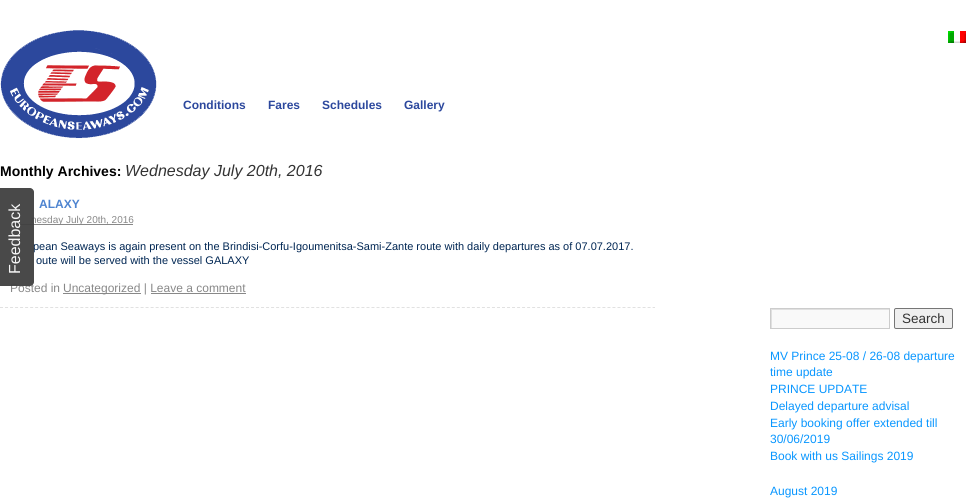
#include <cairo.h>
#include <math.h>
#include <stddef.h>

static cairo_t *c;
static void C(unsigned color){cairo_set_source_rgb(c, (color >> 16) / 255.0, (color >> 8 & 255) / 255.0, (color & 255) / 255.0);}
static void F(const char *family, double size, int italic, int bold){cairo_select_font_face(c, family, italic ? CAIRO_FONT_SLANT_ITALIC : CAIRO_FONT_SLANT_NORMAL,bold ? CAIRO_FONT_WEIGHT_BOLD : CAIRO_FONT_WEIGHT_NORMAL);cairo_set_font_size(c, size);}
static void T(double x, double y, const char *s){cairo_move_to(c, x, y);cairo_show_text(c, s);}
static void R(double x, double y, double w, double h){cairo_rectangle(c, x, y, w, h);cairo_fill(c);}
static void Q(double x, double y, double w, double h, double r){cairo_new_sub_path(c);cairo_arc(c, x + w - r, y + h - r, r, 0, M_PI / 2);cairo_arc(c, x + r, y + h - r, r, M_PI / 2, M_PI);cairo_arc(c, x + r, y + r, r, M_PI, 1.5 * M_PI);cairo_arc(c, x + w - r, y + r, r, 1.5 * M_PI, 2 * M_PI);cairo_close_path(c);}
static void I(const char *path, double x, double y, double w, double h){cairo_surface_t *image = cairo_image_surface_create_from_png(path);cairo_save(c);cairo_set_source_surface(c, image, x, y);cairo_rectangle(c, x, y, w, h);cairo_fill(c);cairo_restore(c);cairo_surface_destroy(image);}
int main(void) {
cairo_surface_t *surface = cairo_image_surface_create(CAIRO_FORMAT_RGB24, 969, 501);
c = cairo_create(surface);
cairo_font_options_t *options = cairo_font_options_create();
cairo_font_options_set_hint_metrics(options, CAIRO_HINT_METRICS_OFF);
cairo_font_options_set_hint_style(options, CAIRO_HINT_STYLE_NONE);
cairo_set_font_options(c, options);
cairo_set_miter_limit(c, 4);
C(0xffffff);
cairo_paint(c);
I("1.png",0,30,157,109);
I("2.png",948,31,18,12);
F("Liberation Sans",12,0,1);
C(0x2c489d);
T(183,109,"Conditions");
T(268,109,"Fares");
T(322,109,"Schedules");
T(404,109,"Gallery");
F("Liberation Sans",14,0,1);
C(0x000000);
T(0,176,"Monthly Archives:");
F("Liberation Sans",16,1,0);
C(0x333333);
T(125,176,"Wednesday July 20th, 2016");
cairo_new_path(c);
cairo_move_to(c,0,307.5);
cairo_line_to(c,655,307.5);
C(0xe1e1e1);
cairo_set_line_width(c,1);
cairo_set_dash(c,(double[]){3,2.02},2,0);
cairo_stroke(c);
F("Liberation Sans",12,0,1);
C(0x4e84d0);
T(39,208,"ALAXY");
C(0x888888);
R(10,224,123,1);
F("Liberation Sans",10,0,0);
T(31,223,"nesday July 20th, 2016");
F("Liberation Sans",11,0,0);
C(0x002653);
T(33,250,"pean Seaways is again present on the Brindisi-Corfu-Igoumenitsa-Sami-Zante route with daily departures as of 07.07.2017.");
T(36,264,"oute will be served with the vessel GALAXY");
F("Liberation Sans",12,0,0);
C(0x888888);
T(10,292,"Posted in");
R(63,293,78,1);
T(63,292,"Uncategorized | Leave a comment");
R(151,293,95,1);
C(0xf9f9f9);
R(772,310,117,18);
cairo_save(c);
cairo_rectangle(c,771,309,118,19);
cairo_clip(c);
C(0xe0e0e0);
cairo_set_fill_rule(c,CAIRO_FILL_RULE_EVEN_ODD);
cairo_new_path(c);
cairo_move_to(c,672,210);
cairo_line_to(c,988,210);
cairo_line_to(c,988,427);
cairo_line_to(c,672,427);
cairo_close_path(c);
cairo_move_to(c,772,310);
cairo_line_to(c,890,310);
cairo_line_to(c,890,329);
cairo_line_to(c,772,329);
cairo_close_path(c);
cairo_fill(c);
cairo_restore(c);
cairo_rectangle(c,770.5,308.5,119,20);
C(0xcccccc);
cairo_set_dash(c,NULL,0,0);
cairo_stroke(c);
C(0xefefef);
Q(894.5,308.5,58,20,1.5);
cairo_fill_preserve(c);
C(0x767676);
cairo_stroke(c);
F("Liberation Sans",13.5,0,0);
C(0x333333);
T(902,323,"Search");
F("Liberation Sans",12,0,0);
C(0x0896ff);
T(770,360,"MV Prince 25-08 / 26-08 departure");
T(770,376,"time update");
T(770,393,"PRINCE UPDATE");
T(770,410,"Delayed departure advisal");
T(770,427,"Early booking offer extended till");
T(770,443,"30/06/2019");
T(770,460,"Book with us Sailings 2019");
T(770,495,"August 2019");
cairo_set_source_rgba(c,0.251,0.251,0.251,0.95);
cairo_new_path(c);
cairo_move_to(c,-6,282);
cairo_line_to(c,-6,192);
cairo_curve_to(c,-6,190,-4,188,-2,188);
cairo_line_to(c,30,188);
cairo_curve_to(c,32,188,34,190,34,192);
cairo_line_to(c,34,282);
cairo_curve_to(c,34,284,32,286,30,286);
cairo_line_to(c,-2,286);
cairo_curve_to(c,-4,286,-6,284,-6,282);
cairo_close_path(c);
cairo_fill(c);
F("Liberation Sans",16,0,0);
C(0xf6f6f6);
cairo_save(c);
cairo_translate(c,20,274);
cairo_rotate(c,-90 * M_PI / 180);
T(0,0,"Feedback");
cairo_restore(c);
cairo_surface_write_to_png(surface, "o.png");
cairo_font_options_destroy(options);
cairo_destroy(c);
cairo_surface_destroy(surface);
return 0;
}
